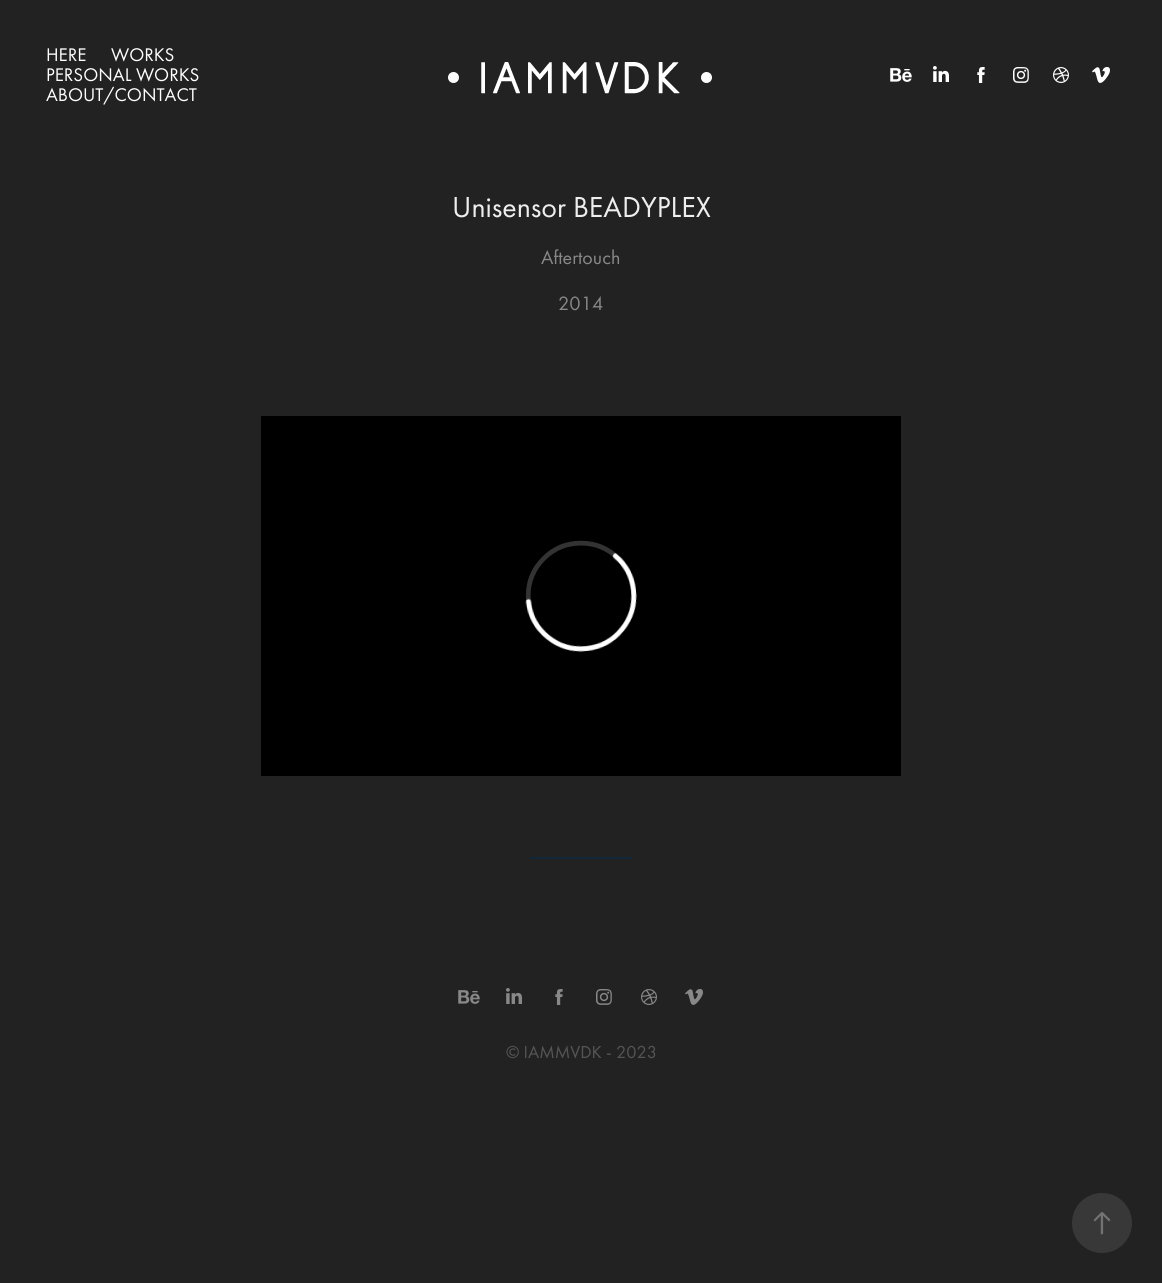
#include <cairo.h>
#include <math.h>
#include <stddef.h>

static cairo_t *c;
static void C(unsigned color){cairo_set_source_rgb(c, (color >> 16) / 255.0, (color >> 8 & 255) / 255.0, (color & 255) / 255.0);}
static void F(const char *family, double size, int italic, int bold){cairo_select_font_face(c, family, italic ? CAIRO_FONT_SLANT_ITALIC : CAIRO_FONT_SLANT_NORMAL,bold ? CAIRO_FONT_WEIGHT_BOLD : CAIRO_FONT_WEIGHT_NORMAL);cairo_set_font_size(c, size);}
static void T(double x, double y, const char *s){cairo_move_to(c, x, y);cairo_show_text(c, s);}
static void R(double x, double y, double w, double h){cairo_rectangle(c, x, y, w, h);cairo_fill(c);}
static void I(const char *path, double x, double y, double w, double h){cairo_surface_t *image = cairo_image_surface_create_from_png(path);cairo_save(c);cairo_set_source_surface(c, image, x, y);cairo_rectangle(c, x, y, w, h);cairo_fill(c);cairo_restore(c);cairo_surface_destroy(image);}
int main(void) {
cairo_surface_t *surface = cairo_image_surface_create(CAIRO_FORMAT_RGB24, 1162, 1283);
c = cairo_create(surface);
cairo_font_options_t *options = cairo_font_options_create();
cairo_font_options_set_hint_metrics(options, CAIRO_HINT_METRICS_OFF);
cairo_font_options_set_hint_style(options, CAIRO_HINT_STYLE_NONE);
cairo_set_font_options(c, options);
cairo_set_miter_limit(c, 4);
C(0x222222);
cairo_paint(c);
F("Futura PT",19,0,0);
C(0xffffff);
T(46,61,"HERE");
T(111,61,"WORKS");
T(46,81,"PERSONAL WORKS");
T(46,101,"ABOUT/CONTACT");
I("1.png",448,62,264,32);
I("2.png",890,68,22,14);
I("3.png",933,66,16,16);
I("4.png",977,67,8,16);
I("5.png",1013,67,16,16);
I("6.png",1053,67,16,16);
I("7.png",1092,67,18,16);
F("Futura PT",30,0,0);
C(0xeeeeee);
T(452,217,"Unisensor BEADYPLEX");
F("Futura PT",20,0,0);
C(0x888888);
T(541,264,"Aftertouch");
T(558,310,"2014");
I("8.png",261,416,640,360);
C(0x13273a);
R(530,857,102,2);
C(0x383838);
cairo_arc(c,1102,1223,30,0,2 * M_PI);
cairo_fill(c);
I("9.png",1093,1212,18,23);
I("10.png",458,990,22,14);
I("11.png",506,988,16,16);
I("12.png",555,989,8,16);
I("13.png",596,989,16,16);
I("14.png",641,989,16,16);
I("15.png",685,989,18,16);
F("Futura PT",18,0,0);
C(0x555555);
T(506,1058,"© IAMMVDK - 2023");
cairo_surface_write_to_png(surface, "o.png");
cairo_font_options_destroy(options);
cairo_destroy(c);
cairo_surface_destroy(surface);
return 0;
}
